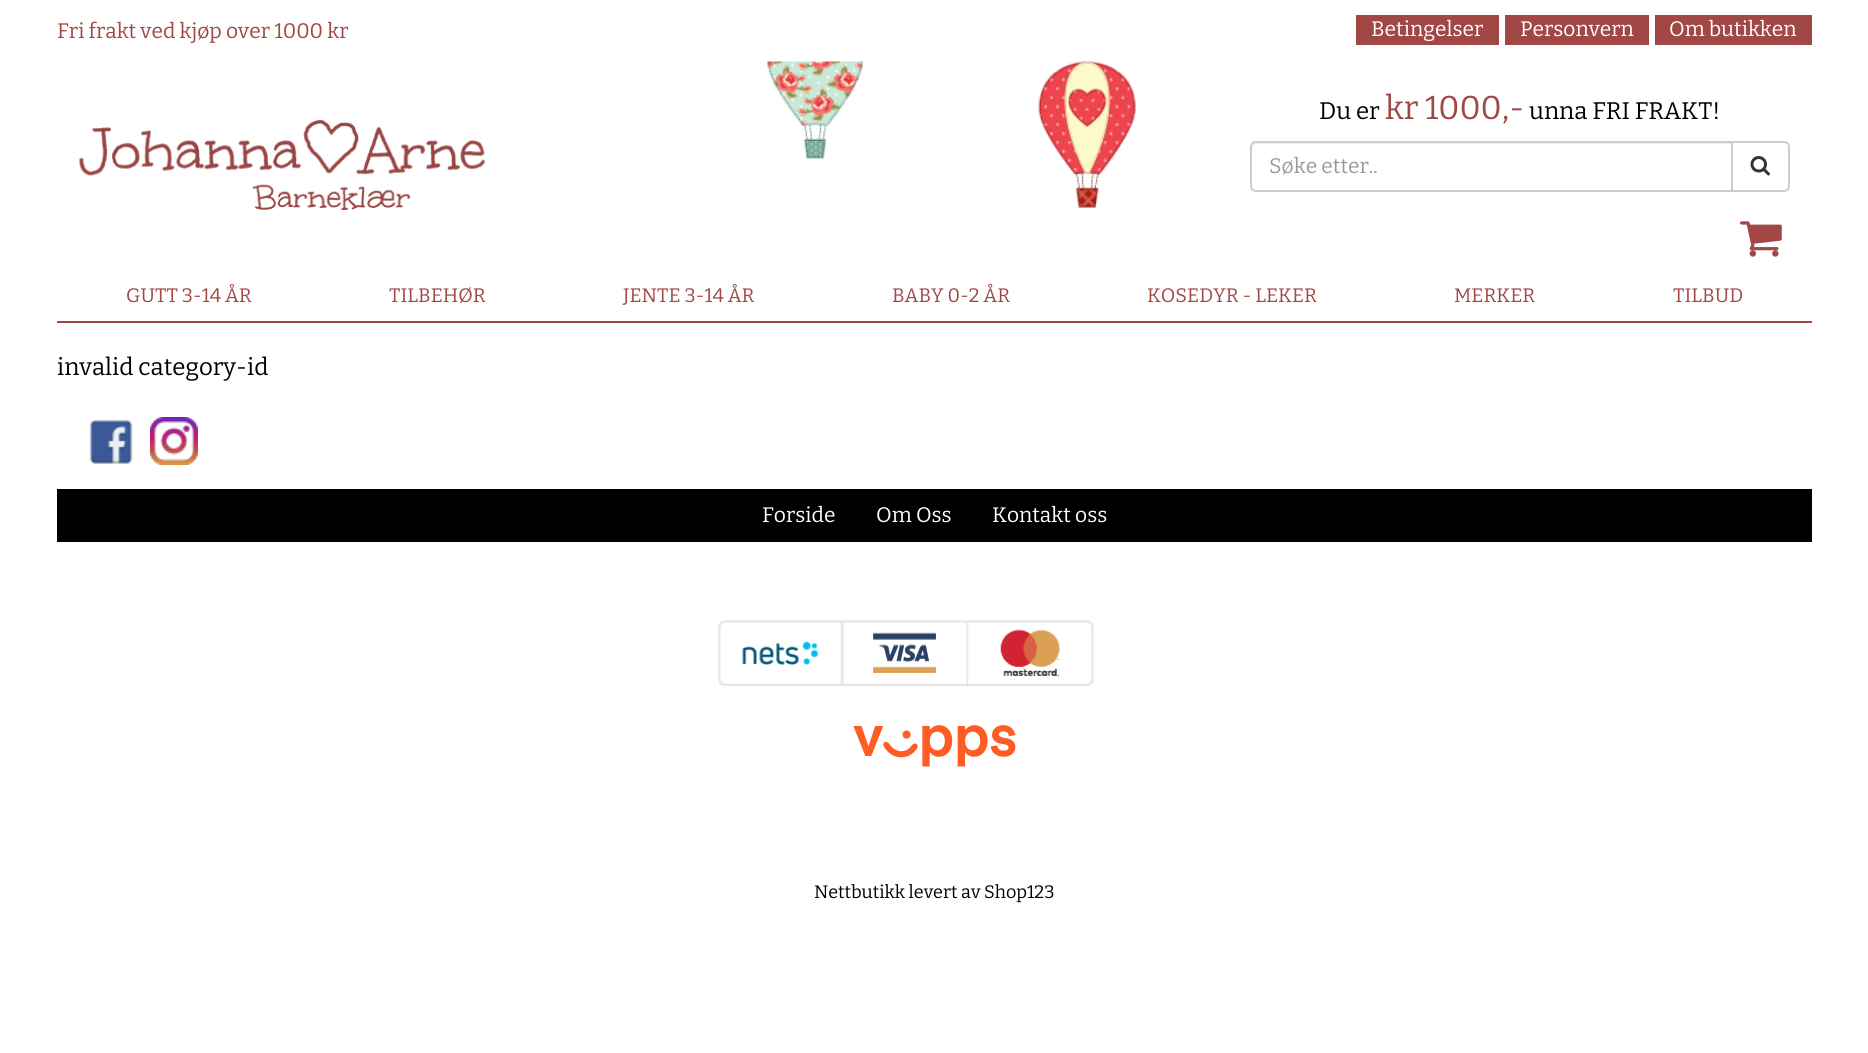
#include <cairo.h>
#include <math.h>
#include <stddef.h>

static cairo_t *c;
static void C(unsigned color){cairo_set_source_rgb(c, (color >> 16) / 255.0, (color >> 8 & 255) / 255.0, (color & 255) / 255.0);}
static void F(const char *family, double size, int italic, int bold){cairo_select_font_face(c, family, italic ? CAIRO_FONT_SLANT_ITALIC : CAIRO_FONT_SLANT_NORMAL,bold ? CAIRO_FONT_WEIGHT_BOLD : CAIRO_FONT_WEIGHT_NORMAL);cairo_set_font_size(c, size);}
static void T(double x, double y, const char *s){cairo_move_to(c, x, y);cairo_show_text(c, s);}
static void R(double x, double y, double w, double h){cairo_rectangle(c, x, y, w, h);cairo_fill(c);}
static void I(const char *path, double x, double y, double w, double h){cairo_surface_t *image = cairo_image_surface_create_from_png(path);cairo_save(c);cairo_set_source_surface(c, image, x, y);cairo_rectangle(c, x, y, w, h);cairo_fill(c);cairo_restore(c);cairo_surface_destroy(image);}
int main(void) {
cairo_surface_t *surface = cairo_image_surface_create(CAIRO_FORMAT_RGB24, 1868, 1053);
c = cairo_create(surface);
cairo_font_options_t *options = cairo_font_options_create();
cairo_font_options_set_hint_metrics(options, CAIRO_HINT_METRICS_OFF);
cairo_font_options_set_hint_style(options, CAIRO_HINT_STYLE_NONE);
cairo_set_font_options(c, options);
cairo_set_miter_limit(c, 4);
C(0xffffff);
cairo_paint(c);
F("Bitter Thin",21,0,0);
C(0xa14745);
T(57,38,"Fri frakt ved kjøp over 1000 kr");
R(1356,15,143,30);
C(0xffffff);
T(1371,36,"Betingelser");
C(0xa14745);
R(1505,15,144,30);
C(0xffffff);
T(1520,36,"Personvern");
C(0xa14745);
R(1655,15,157,30);
C(0xffffff);
T(1669,36,"Om butikken");
I("1.png",767,61,369,147);
I("2.png",79,120,406,90);
F("Bitter Thin",24,0,0);
C(0x000000);
T(1319,119,"Du er");
F("Bitter Thin",33,0,0);
C(0xa14745);
T(1385,119,"kr 1000,-");
F("Bitter Thin",24,0,0);
C(0x000000);
T(1529,119,"unna FRI FRAKT!");
C(0xececec);
cairo_new_path(c);
cairo_move_to(c,1256,144);
cairo_line_to(c,1731,144);
cairo_line_to(c,1731,143);
cairo_line_to(c,1256,143);
cairo_curve_to(c,1253,143,1251,145,1251,148);
cairo_curve_to(c,1251,146,1253,144,1256,144);
cairo_close_path(c);
cairo_fill(c);
cairo_new_path(c);
cairo_move_to(c,1256,142);
cairo_line_to(c,1732,142);
cairo_line_to(c,1732,191);
cairo_line_to(c,1256,191);
cairo_curve_to(c,1253,191,1251,189,1251,186);
cairo_line_to(c,1251,147);
cairo_curve_to(c,1251,144,1253,142,1256,142);
cairo_close_path(c);
C(0xcccccc);
cairo_stroke(c);
F("Bitter Thin",21,0,0);
C(0x999999);
T(1269,173,"Søke etter..");
C(0xffffff);
cairo_new_path(c);
cairo_move_to(c,1732,142);
cairo_line_to(c,1784,142);
cairo_curve_to(c,1787,142,1789,144,1789,147);
cairo_line_to(c,1789,186);
cairo_curve_to(c,1789,189,1787,191,1784,191);
cairo_line_to(c,1732,191);
cairo_close_path(c);
cairo_fill_preserve(c);
C(0xcccccc);
cairo_stroke(c);
I("3.png",1750,156,20,20);
I("4.png",1740,221,42,36);
C(0xa14745);
R(57,321,1755,2);
F("Bitter Thin",19.5,0,0);
T(126,302,"GUTT 3-14 ÅR");
T(389,302,"TILBEHØR");
T(623,302,"JENTE 3-14 ÅR");
T(892,302,"BABY 0-2 ÅR");
T(1147,302,"KOSEDYR - LEKER");
T(1454,302,"MERKER");
T(1673,302,"TILBUD");
F("Bitter Thin",24,0,0);
C(0x000000);
T(57,375,"invalid category-id");
I("5.png",89,419,44,45);
I("6.png",150,417,48,48);
R(57,489,1755,53);
F("Bitter Thin",21,0,0);
C(0xffffff);
T(762,522,"Forside");
T(876,522,"Om Oss");
T(992,522,"Kontakt oss");
I("7.png",718,619,376,68);
I("8.png",853,725,163,42);
F("Bitter Thin",18,0,0);
C(0x000000);
T(814,898,"Nettbutikk levert av Shop123");
cairo_surface_write_to_png(surface, "o.png");
cairo_font_options_destroy(options);
cairo_destroy(c);
cairo_surface_destroy(surface);
return 0;
}
